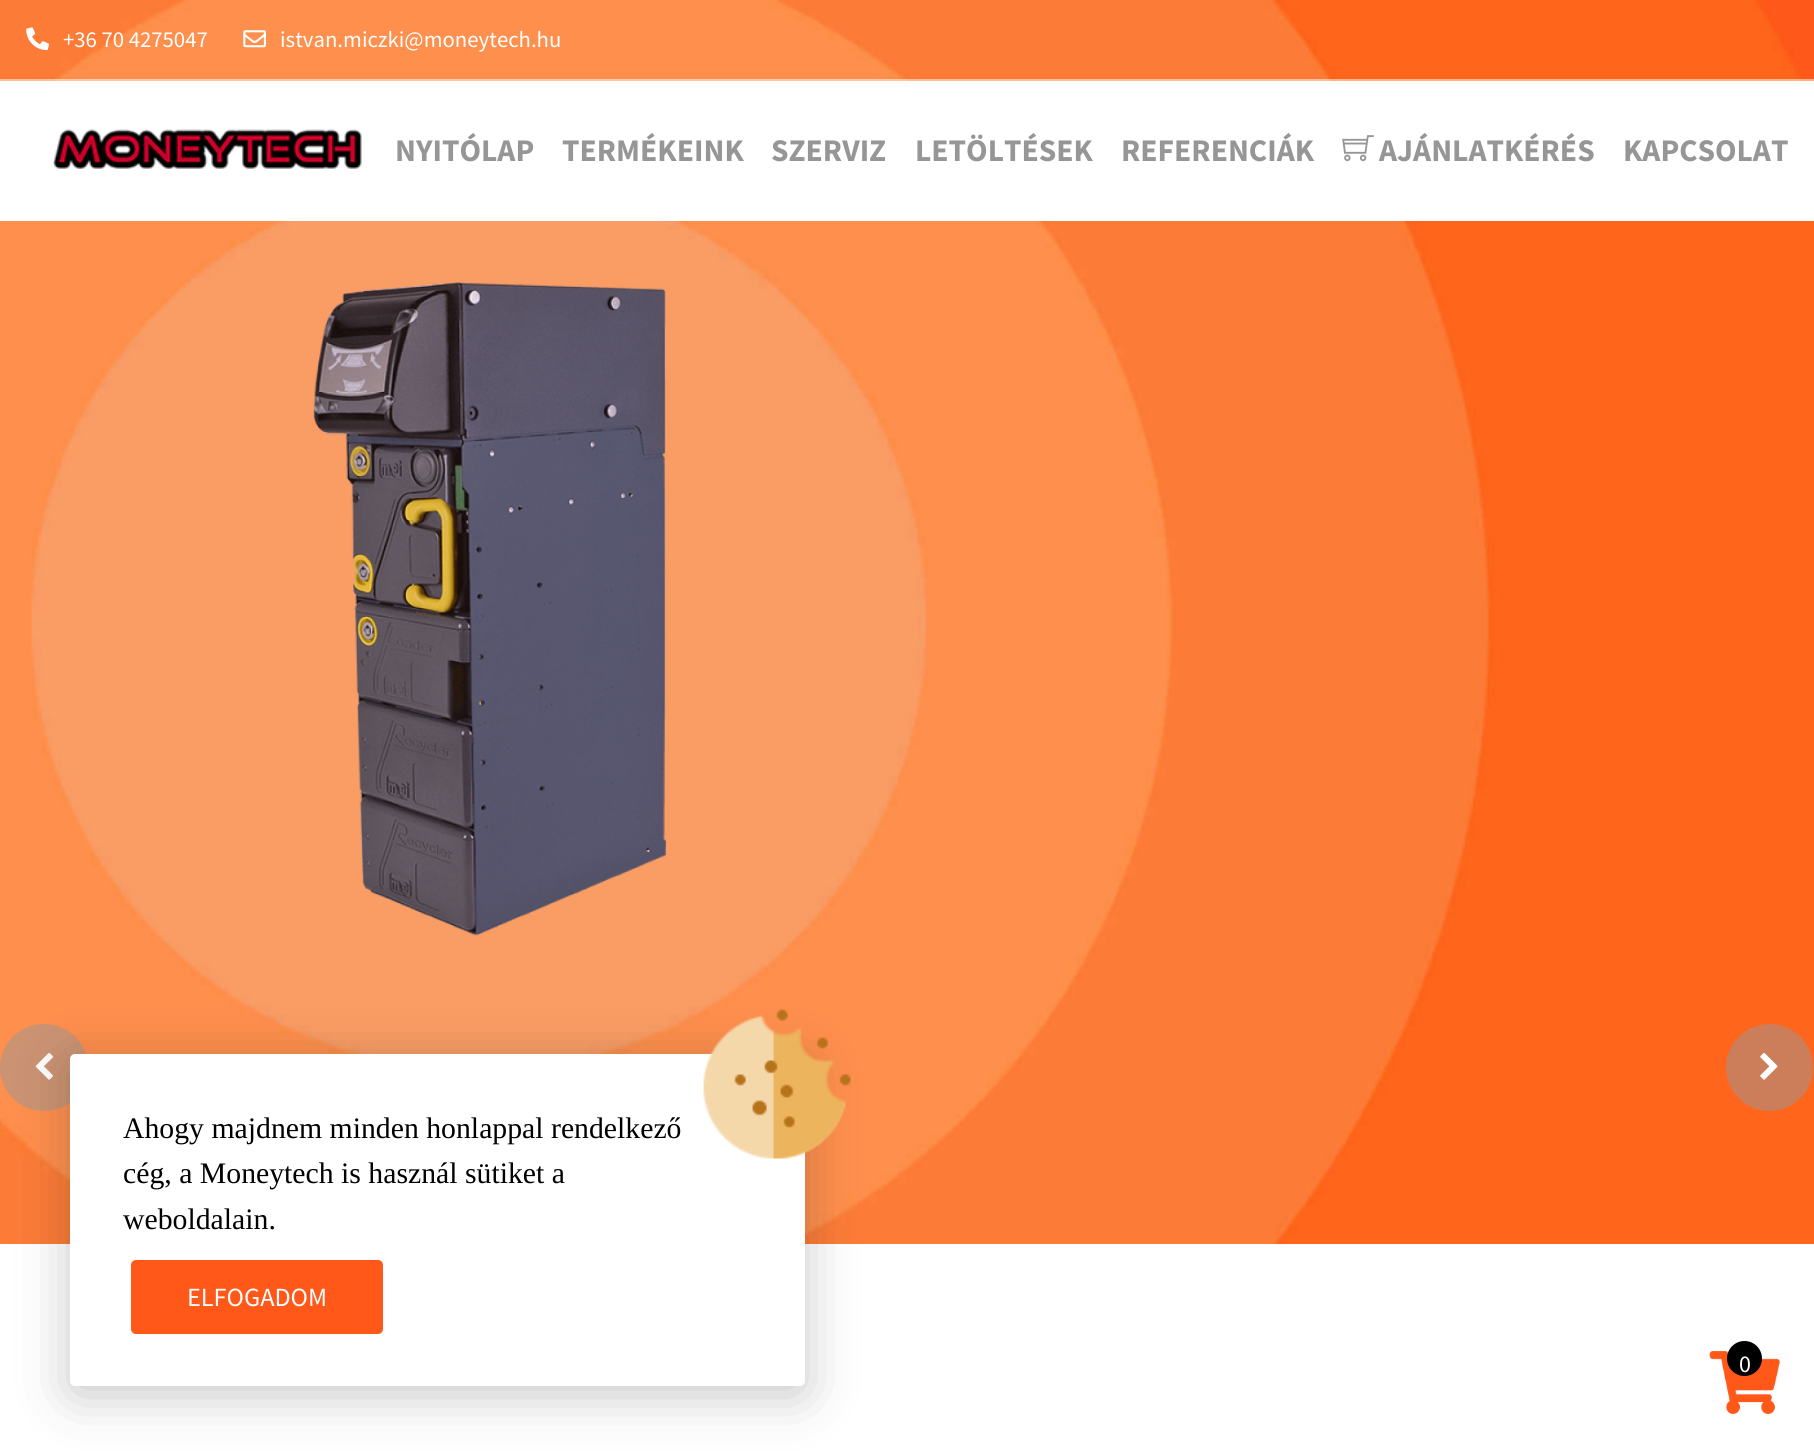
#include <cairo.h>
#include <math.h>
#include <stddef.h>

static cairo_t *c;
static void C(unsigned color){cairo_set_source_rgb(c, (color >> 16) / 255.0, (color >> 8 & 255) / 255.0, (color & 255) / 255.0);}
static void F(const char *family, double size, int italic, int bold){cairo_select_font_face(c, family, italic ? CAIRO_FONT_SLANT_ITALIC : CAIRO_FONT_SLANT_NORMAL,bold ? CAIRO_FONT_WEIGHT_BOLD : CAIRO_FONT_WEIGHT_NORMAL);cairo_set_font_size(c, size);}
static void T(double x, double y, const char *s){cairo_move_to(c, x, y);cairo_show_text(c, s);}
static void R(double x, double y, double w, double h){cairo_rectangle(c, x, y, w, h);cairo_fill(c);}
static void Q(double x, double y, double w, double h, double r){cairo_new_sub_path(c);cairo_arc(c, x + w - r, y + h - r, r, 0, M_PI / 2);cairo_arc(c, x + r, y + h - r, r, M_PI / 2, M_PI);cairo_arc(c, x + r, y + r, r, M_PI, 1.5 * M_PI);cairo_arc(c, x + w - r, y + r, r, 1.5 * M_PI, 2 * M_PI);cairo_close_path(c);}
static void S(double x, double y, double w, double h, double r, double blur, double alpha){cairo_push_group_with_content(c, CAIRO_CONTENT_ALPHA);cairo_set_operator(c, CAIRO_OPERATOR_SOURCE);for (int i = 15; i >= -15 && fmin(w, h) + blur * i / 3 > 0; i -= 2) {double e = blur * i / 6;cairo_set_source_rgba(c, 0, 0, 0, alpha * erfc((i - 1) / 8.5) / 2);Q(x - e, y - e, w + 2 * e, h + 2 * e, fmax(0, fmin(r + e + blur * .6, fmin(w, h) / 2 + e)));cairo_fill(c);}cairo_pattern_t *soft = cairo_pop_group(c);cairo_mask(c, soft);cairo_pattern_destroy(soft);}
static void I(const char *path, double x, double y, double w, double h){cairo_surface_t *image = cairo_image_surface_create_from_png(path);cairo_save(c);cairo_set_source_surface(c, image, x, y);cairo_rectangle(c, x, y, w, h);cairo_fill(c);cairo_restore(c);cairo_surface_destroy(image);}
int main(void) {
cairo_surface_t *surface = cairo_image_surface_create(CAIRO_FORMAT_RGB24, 1814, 1456);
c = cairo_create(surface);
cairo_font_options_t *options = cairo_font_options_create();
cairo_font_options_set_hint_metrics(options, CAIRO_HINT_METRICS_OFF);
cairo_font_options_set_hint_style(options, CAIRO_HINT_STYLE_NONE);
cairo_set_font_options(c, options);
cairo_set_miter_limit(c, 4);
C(0xffffff);
cairo_paint(c);
I("1.png",0,0,1814,1244);
I("2.png",313,282,353,654);
C(0xcb9372);
Q(0,1024,88,87,43.5);
cairo_fill(c);
I("3.png",35,1053,18,27);
C(0xcb7e59);
cairo_arc(c,1769.5,1067.5,43.5,0,2 * M_PI);
cairo_fill(c);
I("4.png",1760,1053,18,27);
cairo_set_source_rgba(c,1,1,1,0.5);
R(0,79,1814,2);
I("5.png",26,27,23,24);
F("Source Sans Pro",22.75,0,0);
C(0xffffff);
T(63,47,"+36 70 4275047");
I("6.png",243,30,23,18);
T(280,47,"istvan.miczki@moneytech.hu");
R(0,81,1814,140);
I("7.png",52,129,310,41);
F("Source Sans Pro",31.5,0,1);
C(0x969696);
T(395,161,"NYITÓLAP");
T(562,161,"TERMÉKEINK");
T(771,161,"SZERVIZ");
T(915,161,"LETÖLTÉSEK");
T(1121,161,"REFERENCIÁK");
I("8.png",1342,135,32,27);
T(1379,161,"AJÁNLATKÉRÉS");
T(1623,161,"KAPCSOLAT");
C(0x202020);
S(70,1062,735,333,5,26,.25);
C(0xffffff);
Q(70,1054,735,332,5);
cairo_fill(c);
I("9.png",703,1009,148,150);
F("Liberation Serif",29.75,0,0);
C(0x000000);
T(123,1138,"Ahogy majdnem minden honlappal rendelkező");
T(123,1183,"cég, a Moneytech is használ sütiket a");
T(123,1229,"weboldalain.");
C(0xff5819);
Q(131,1260,252,74,5);
cairo_fill(c);
F("Source Sans Pro",26.25,0,0);
C(0xffffff);
T(187,1306,"ELFOGADOM");
I("10.png",1709,1351,71,63);
C(0x000000);
cairo_arc(c,1744.5,1358.5,17.5,0,2 * M_PI);
cairo_fill(c);
F("Source Sans Pro",24,0,0);
C(0xffffff);
T(1739,1372,"0");
cairo_surface_write_to_png(surface, "o.png");
cairo_font_options_destroy(options);
cairo_destroy(c);
cairo_surface_destroy(surface);
return 0;
}
